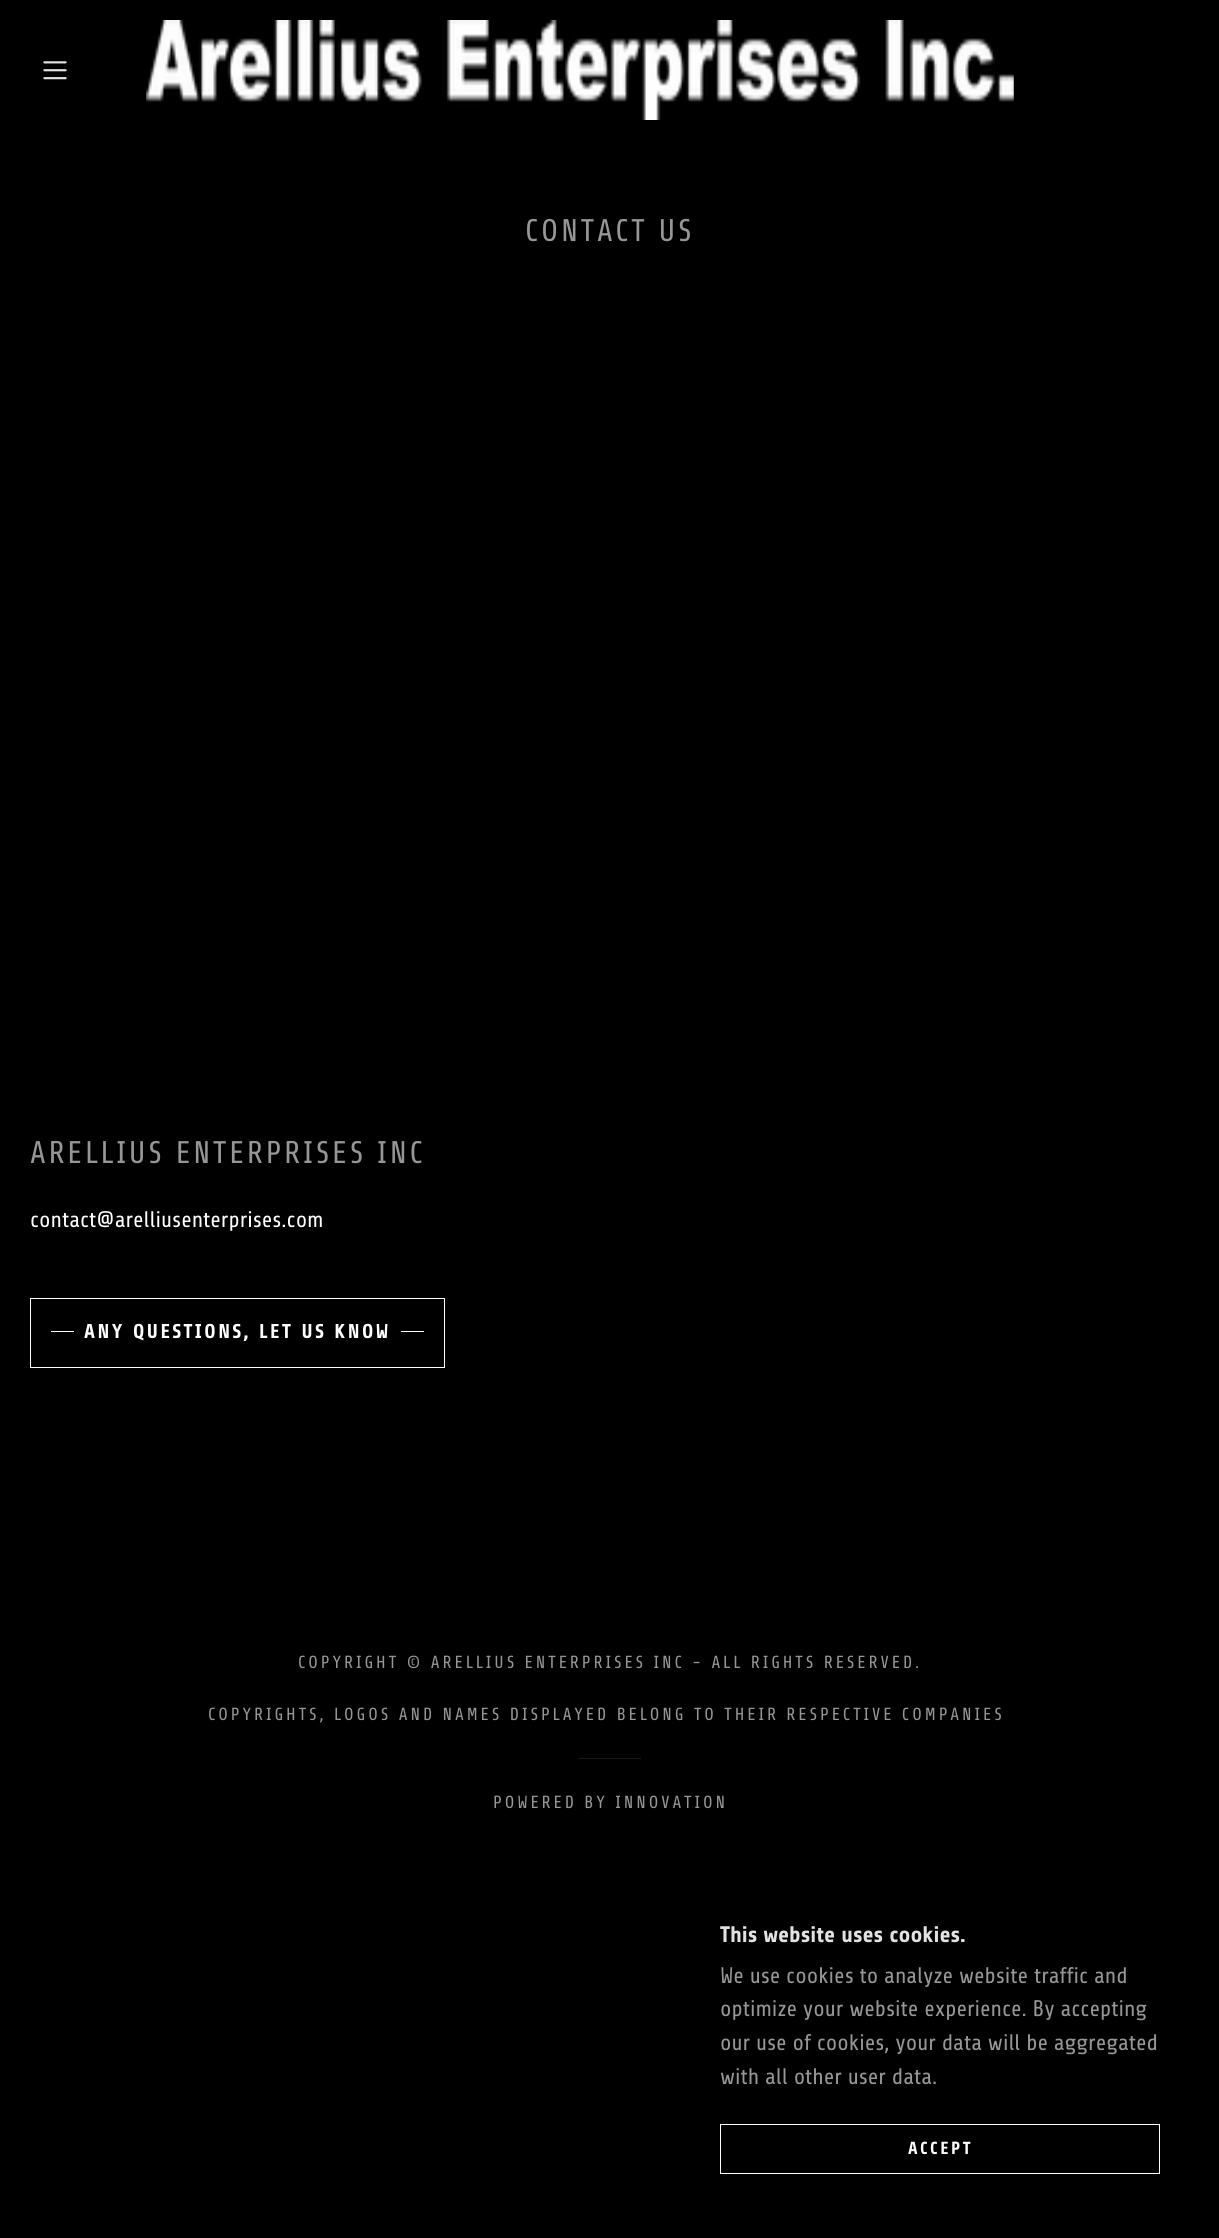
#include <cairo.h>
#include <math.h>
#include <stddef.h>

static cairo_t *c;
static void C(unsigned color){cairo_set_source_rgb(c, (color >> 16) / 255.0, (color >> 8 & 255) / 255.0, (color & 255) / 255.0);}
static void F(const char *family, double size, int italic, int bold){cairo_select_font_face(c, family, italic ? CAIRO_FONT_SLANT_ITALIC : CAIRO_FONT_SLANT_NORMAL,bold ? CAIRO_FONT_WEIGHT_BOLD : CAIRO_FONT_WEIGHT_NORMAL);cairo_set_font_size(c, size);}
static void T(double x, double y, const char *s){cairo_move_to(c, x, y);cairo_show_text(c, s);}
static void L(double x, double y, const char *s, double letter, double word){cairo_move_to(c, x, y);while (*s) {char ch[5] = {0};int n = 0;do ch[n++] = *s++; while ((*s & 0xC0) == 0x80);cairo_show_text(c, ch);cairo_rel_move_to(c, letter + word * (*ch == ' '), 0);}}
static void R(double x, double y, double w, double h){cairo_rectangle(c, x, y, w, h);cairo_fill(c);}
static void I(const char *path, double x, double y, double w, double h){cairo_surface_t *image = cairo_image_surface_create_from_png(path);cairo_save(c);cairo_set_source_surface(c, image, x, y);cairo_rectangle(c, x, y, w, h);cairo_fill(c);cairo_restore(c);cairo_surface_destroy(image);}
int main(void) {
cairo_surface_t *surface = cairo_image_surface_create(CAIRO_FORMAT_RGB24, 1219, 2238);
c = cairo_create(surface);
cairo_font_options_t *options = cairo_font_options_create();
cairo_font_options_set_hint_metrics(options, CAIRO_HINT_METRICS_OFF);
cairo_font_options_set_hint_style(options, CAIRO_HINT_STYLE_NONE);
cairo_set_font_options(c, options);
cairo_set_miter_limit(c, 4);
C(0x000000);
cairo_paint(c);
I("1.png",43,61,24,19);
I("2.png",146,20,868,100);
F("Share",31.25,0,0);
C(0x969696);
L(525,241,"CONTACT US",2.8,0);
L(30,1163,"ARELLIUS ENTERPRISES INC",2.8,0);
F("Share",22.5,0,0);
C(0xffffff);
T(30,1227,"contact@arelliusenterprises.com");
cairo_rectangle(c,30.5,1298.5,414,69);
cairo_set_line_width(c,1);
cairo_stroke(c);
R(51,1331,23,1);
F("Share",20,0,1);
L(84,1338,"ANY QUESTIONS, LET US KNOW",2.5,0);
R(401,1331,23,1);
F("Share",17.5,0,0);
C(0x969696);
L(298,1668,"COPYRIGHT © ARELLIUS ENTERPRISES INC - ALL RIGHTS RESERVED.",2.92,0);
L(208,1720,"COPYRIGHTS, LOGOS AND NAMES DISPLAYED BELONG TO THEIR RESPECTIVE COMPANIES",2.92,0);
C(0x1b1b1b);
R(579,1758,62,1);
C(0x969696);
L(493,1808,"POWERED BY INNOVATION",2.92,0);
F("Share",22.5,0,1);
C(0xe2e2e2);
T(720,1942,"This website uses cookies.");
F("Share",22.5,0,0);
C(0x969696);
T(720,1983,"We use cookies to analyze website traffic and");
T(720,2016,"optimize your website experience. By accepting");
T(720,2050,"our use of cookies, your data will be aggregated");
T(720,2084,"with all other user data.");
cairo_rectangle(c,720.5,2124.5,439,49);
C(0xffffff);
cairo_stroke(c);
F("Share",17.5,0,1);
L(908,2154,"ACCEPT",2.5,0);
cairo_surface_write_to_png(surface, "o.png");
cairo_font_options_destroy(options);
cairo_destroy(c);
cairo_surface_destroy(surface);
return 0;
}
